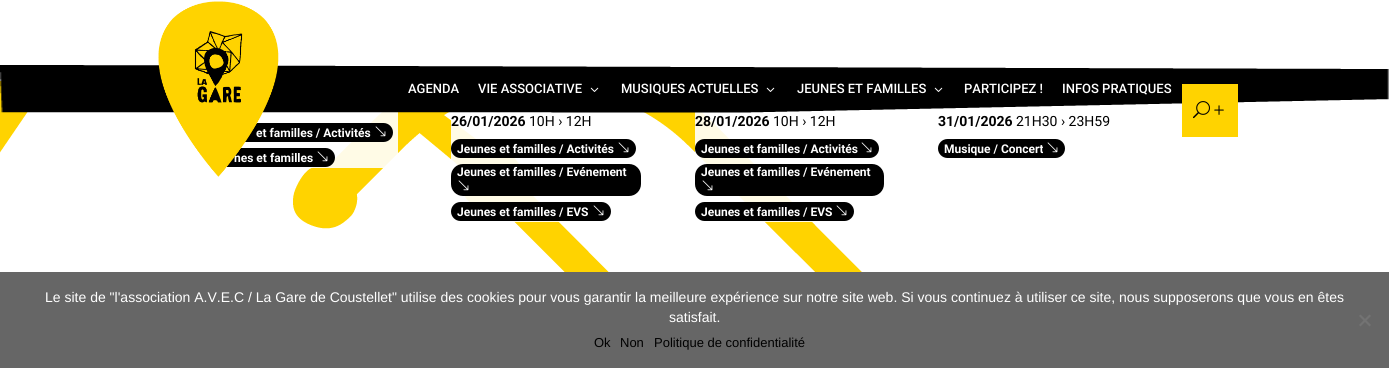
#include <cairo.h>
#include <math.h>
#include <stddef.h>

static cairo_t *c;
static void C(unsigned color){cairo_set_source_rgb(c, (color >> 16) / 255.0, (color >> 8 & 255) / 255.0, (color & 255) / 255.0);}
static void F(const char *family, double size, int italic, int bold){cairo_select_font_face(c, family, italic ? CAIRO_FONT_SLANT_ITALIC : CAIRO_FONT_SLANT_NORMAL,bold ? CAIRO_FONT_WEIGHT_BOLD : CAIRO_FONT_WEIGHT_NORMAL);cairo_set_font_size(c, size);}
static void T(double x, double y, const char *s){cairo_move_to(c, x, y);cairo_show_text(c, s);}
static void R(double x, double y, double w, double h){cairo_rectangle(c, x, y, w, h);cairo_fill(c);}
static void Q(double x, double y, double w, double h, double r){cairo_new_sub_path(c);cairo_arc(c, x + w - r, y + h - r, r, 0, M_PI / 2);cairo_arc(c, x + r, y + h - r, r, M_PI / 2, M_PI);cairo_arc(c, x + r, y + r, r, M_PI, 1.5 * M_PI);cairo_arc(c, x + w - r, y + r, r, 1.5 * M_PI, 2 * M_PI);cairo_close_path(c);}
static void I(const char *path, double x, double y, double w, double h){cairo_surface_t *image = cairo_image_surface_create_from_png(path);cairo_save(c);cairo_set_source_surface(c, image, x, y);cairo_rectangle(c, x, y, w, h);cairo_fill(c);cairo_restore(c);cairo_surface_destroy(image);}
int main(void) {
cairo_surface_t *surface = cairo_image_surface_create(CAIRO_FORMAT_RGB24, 1389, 368);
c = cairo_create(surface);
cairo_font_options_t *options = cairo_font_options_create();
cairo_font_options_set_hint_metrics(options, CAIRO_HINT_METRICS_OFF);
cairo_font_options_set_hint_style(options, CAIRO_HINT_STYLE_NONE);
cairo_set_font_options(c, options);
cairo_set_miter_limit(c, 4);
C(0xffffff);
cairo_paint(c);
I("1.png",0,81,862,191);
cairo_set_source_rgba(c,1,1,1,0.9);
R(311,112,87,56);
R(695,109,117,113);
I("2.png",0,65,1389,48);
C(0x000000);
Q(208,123,185,19,9.5);
cairo_fill(c);
F("Roboto",12,0,1);
C(0xffffff);
T(256,137,"et familles / Activités");
C(0x000000);
Q(208,148,127,19,9.5);
cairo_fill(c);
C(0xffffff);
T(234,162,"nes et familles");
I("3.png",158,1,121,176);
F("Roboto Medium",13,0,0);
T(408,93,"AGENDA");
T(478,93,"VIE ASSOCIATIVE");
I("4.png",590,87,9,5);
T(621,93,"MUSIQUES ACTUELLES");
I("4.png",766,87,9,5);
T(797,93,"JEUNES ET FAMILLES");
I("4.png",934,87,9,5);
T(964,93,"PARTICIPEZ !");
T(1062,93,"INFOS PRATIQUES");
C(0xffd300);
R(1182,84,56,53);
I("5.png",1193,101,31,18);
I("6.png",375,126,11,11);
I("6.png",317,151,11,11);
cairo_set_source_rgba(c,1,1,1,0.9);
R(451,120,108,102);
F("Roboto",14,0,1);
C(0x000000);
T(451,126,"26/01/2026");
F("Roboto",14,0,0);
T(529,126,"10H › 12H");
Q(451,139,185,19,9.5);
cairo_fill(c);
F("Roboto",12,0,1);
C(0xffffff);
T(457,153,"Jeunes et familles / Activités");
I("6.png",618,142,11,11);
C(0x000000);
Q(451,164,190,32,12);
cairo_fill(c);
C(0xffffff);
T(457,176,"Jeunes et familles / Evénement");
I("6.png",458,180,11,11);
C(0x000000);
Q(451,202,160,19,9.5);
cairo_fill(c);
C(0xffffff);
T(457,216,"Jeunes et familles / EVS");
I("6.png",593,205,11,11);
F("Roboto",14,0,1);
C(0x000000);
T(695,126,"28/01/2026");
F("Roboto",14,0,0);
T(773,126,"10H › 12H");
Q(695,139,184,19,9.5);
cairo_fill(c);
F("Roboto",12,0,1);
C(0xffffff);
T(701,153,"Jeunes et familles / Activités");
I("6.png",861,142,11,11);
C(0x000000);
Q(695,164,189,32,12);
cairo_fill(c);
C(0xffffff);
T(701,176,"Jeunes et familles / Evénement");
I("6.png",702,180,11,11);
C(0x000000);
Q(695,202,159,19,9.5);
cairo_fill(c);
C(0xffffff);
T(701,216,"Jeunes et familles / EVS");
I("6.png",836,205,11,11);
F("Roboto",14,0,1);
C(0x000000);
T(938,126,"31/01/2026");
F("Roboto",14,0,0);
T(1016,126,"21H30 › 23H59");
Q(938,139,127,19,9.5);
cairo_fill(c);
F("Roboto",12,0,1);
C(0xffffff);
T(944,153,"Musique / Concert");
I("6.png",1047,142,11,11);
C(0x666666);
R(0,272,1389,96);
F("Liberation Sans",14,0,0);
C(0xffffff);
T(45,302,"Le site de \"l'association A.V.E.C / La Gare de Coustellet\" utilise des cookies pour vous garantir la meilleure expérience sur notre site web. Si vous continuez à utiliser ce site, nous supposerons que vous en êtes");
T(669,322,"satisfait.");
C(0x737373);
cairo_new_path(c);
cairo_move_to(c,1369.5,314.5);
cairo_line_to(c,1371,316);
cairo_line_to(c,1360.5,326.5);
cairo_line_to(c,1359,325);
cairo_close_path(c);
cairo_fill(c);
cairo_new_path(c);
cairo_move_to(c,1359,316);
cairo_line_to(c,1360.5,314.5);
cairo_line_to(c,1371,325);
cairo_line_to(c,1369.5,326.5);
cairo_close_path(c);
cairo_fill(c);
F("Liberation Sans",13,0,0);
C(0x000000);
T(594,347,"Ok");
T(620,347,"Non");
T(654,347,"Politique de confidentialité");
cairo_surface_write_to_png(surface, "o.png");
cairo_font_options_destroy(options);
cairo_destroy(c);
cairo_surface_destroy(surface);
return 0;
}
